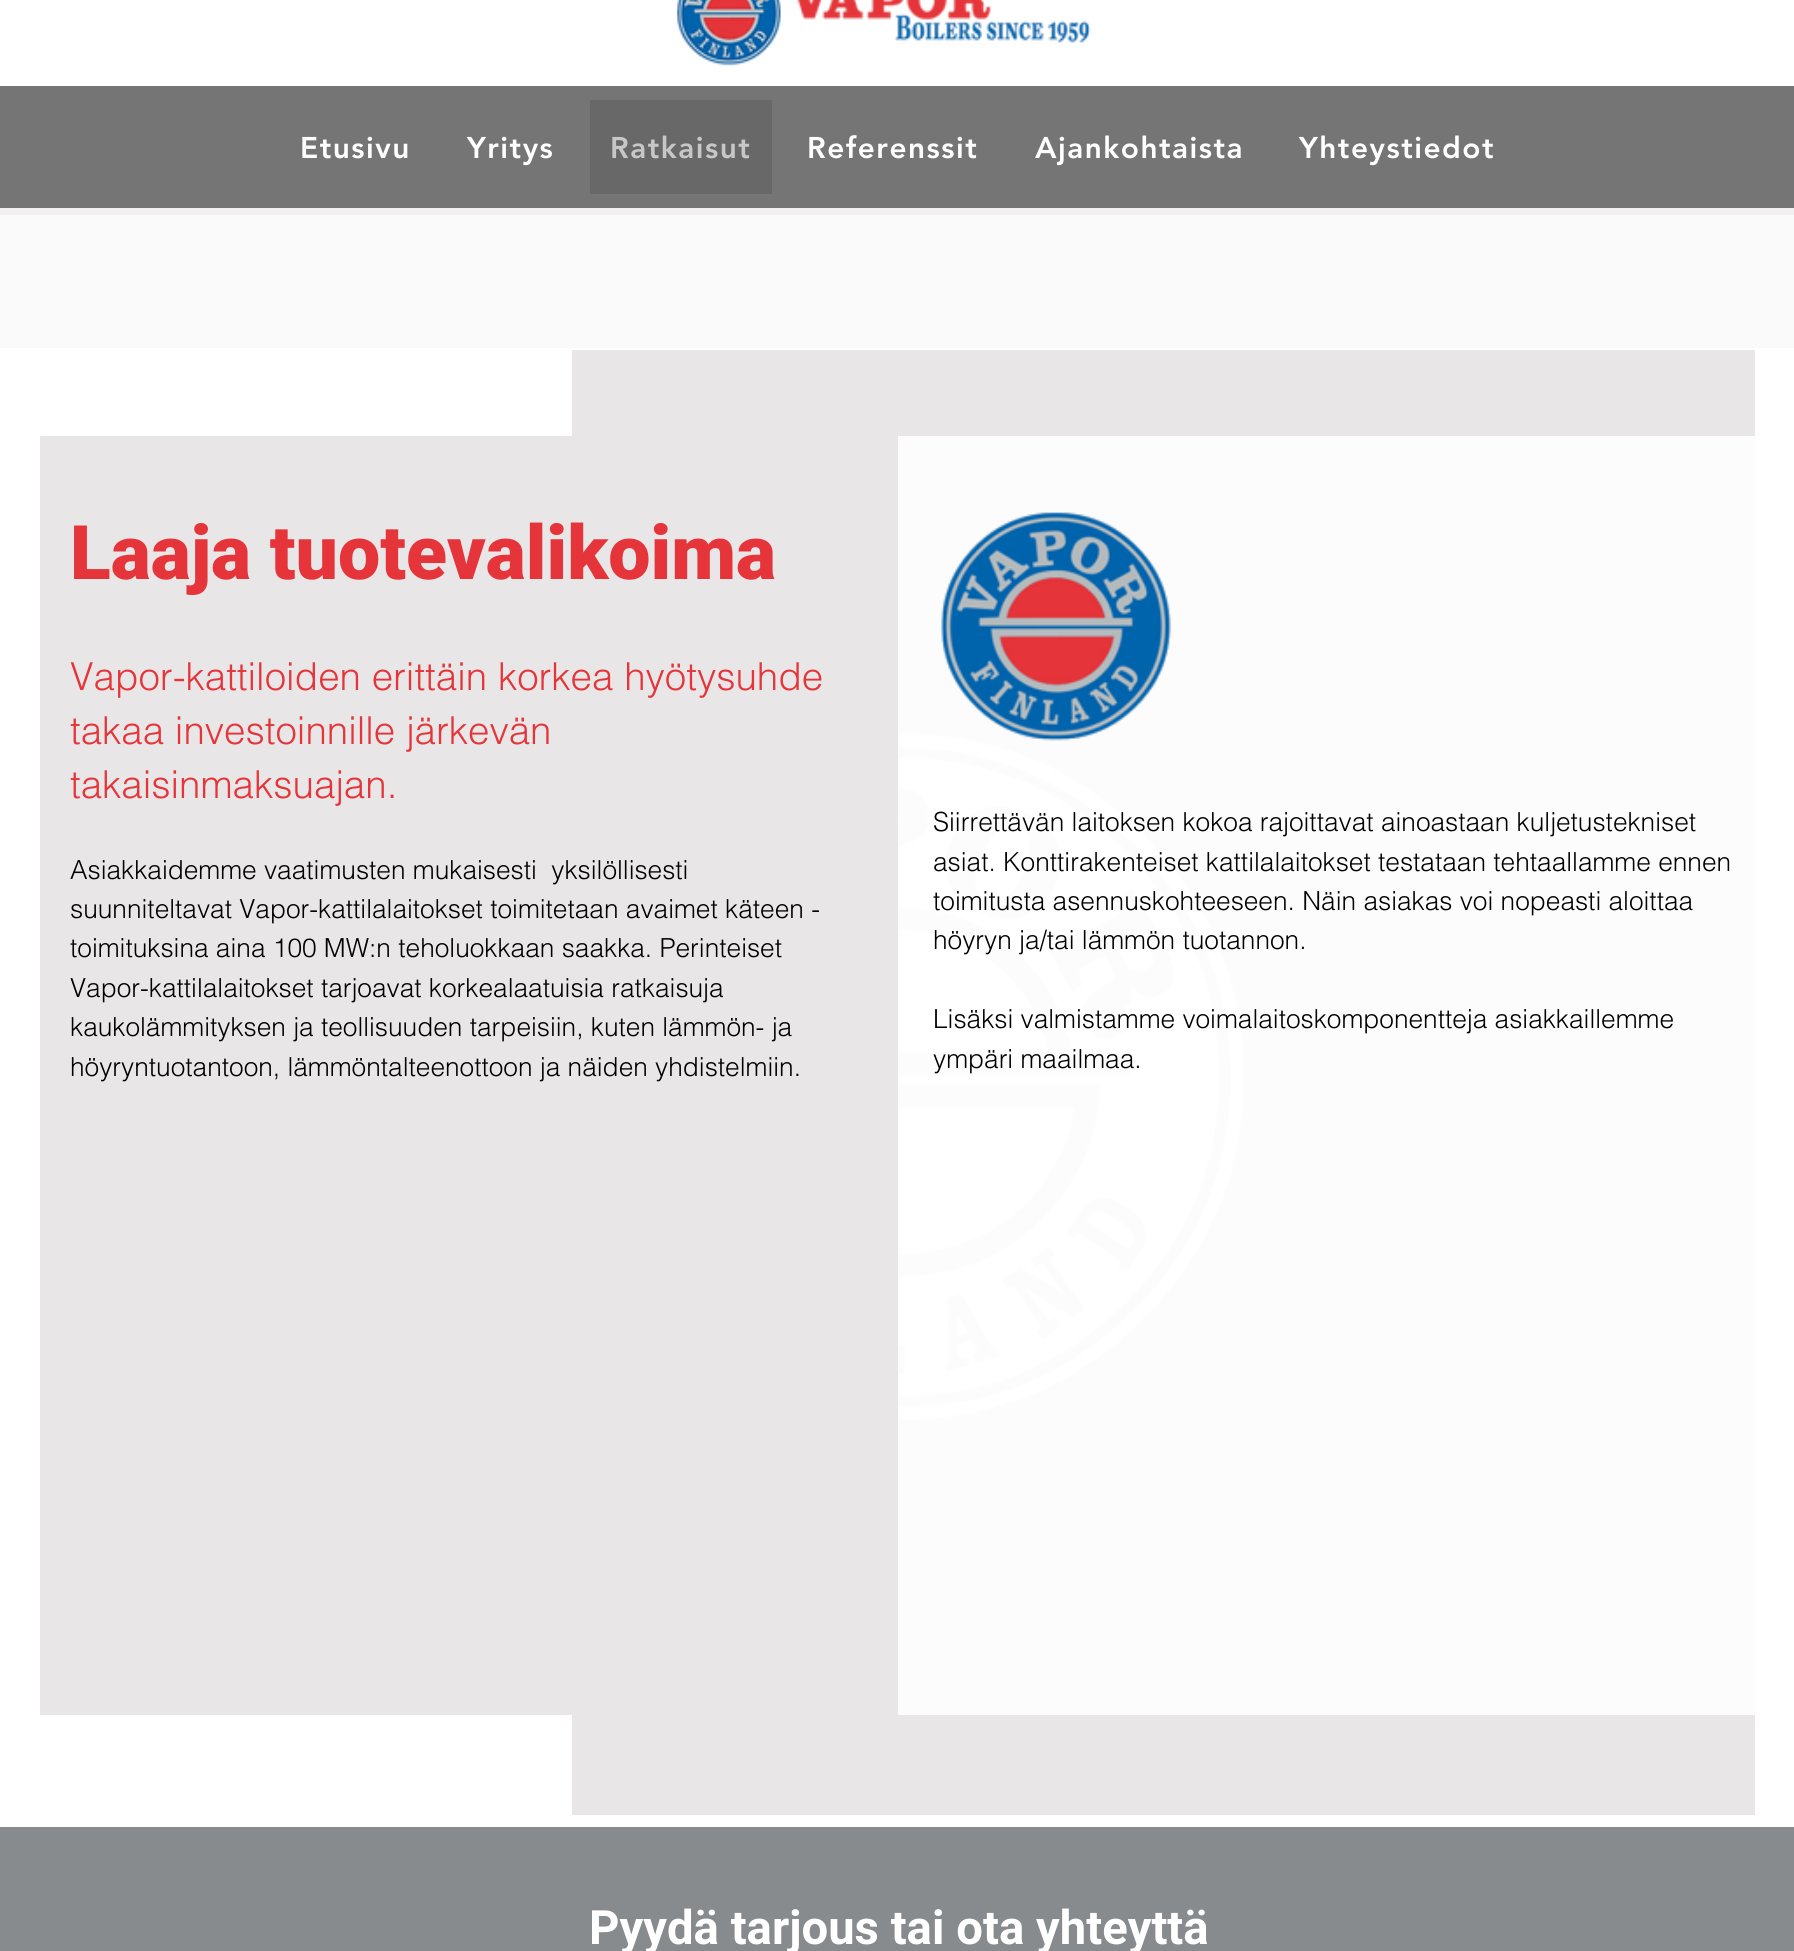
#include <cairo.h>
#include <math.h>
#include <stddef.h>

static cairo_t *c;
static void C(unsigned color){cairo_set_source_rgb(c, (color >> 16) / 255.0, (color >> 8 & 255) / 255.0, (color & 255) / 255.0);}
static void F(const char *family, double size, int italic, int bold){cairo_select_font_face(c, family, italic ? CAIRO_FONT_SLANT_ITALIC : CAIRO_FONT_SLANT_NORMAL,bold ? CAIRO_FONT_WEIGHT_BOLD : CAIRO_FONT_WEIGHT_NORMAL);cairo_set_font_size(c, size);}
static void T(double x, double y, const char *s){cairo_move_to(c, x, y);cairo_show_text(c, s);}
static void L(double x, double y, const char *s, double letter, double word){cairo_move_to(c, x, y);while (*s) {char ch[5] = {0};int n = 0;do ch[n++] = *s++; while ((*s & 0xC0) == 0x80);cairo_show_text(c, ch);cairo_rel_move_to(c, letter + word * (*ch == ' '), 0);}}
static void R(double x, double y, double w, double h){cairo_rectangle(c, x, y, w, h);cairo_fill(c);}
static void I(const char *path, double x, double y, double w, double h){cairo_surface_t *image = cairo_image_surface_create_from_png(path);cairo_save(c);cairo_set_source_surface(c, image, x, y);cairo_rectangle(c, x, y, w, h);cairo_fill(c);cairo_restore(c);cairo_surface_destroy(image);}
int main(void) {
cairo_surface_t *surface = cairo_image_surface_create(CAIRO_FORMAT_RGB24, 1794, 1951);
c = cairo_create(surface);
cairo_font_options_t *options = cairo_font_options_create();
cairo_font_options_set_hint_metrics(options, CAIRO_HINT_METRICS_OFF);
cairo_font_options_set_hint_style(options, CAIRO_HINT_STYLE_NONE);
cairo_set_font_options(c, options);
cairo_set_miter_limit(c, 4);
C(0xffffff);
cairo_paint(c);
I("1.png",676,0,415,66);
C(0x757575);
R(0,86,1794,122);
F("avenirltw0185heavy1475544 Black",29.75,0,0);
C(0xffffff);
L(300,158,"Etusivu",1.5,0);
L(467,158,"Yritys",1.5,0);
C(0x686868);
R(590,100,182,94);
C(0xc7c7c7);
L(610,158,"Ratkaisut",1.5,0);
C(0xffffff);
L(807,158,"Referenssit",1.5,0);
L(1035,158,"Ajankohtaista",1.5,0);
L(1299,158,"Yhteystiedot",1.5,0);
C(0xf2f0f0);
R(0,208,1794,7);
C(0xfafafa);
R(0,215,1794,133);
C(0xe8e6e6);
R(572,350,1183,1465);
R(40,436,532,1279);
F("Roboto Black",75.25,0,0);
C(0xe5353a);
T(70,579,"Laaja tuotevalikoima");
F("helvetica Light",38.5,0,0);
T(70,690,"Vapor-kattiloiden erittäin korkea hyötysuhde");
T(70,744,"takaa investoinnille järkevän");
T(70,798,"takaisinmaksuajan.");
F("helvetica Light",26.25,0,0);
C(0x000000);
T(70,879,"Asiakkaidemme vaatimusten mukaisesti  yksilöllisesti");
T(70,918,"suunniteltavat Vapor-kattilalaitokset toimitetaan avaimet käteen -");
T(70,957,"toimituksina aina 100 MW:n teholuokkaan saakka. Perinteiset");
T(70,997,"Vapor-kattilalaitokset tarjoavat korkealaatuisia ratkaisuja");
T(70,1036,"kaukolämmityksen ja teollisuuden tarpeisiin, kuten lämmön- ja");
T(70,1076,"höyryntuotantoon, lämmöntalteenottoon ja näiden yhdistelmiin.");
I("3.png",898,733,347,688);
cairo_set_source_rgba(c,1,1,1,0.87);
R(898,436,857,1279);
I("2.png",941,512,231,229);
C(0x000000);
T(933,831,"Siirrettävän laitoksen kokoa rajoittavat ainoastaan kuljetustekniset");
T(933,871,"asiat. Konttirakenteiset kattilalaitokset testataan tehtaallamme ennen");
T(933,910,"toimitusta asennuskohteeseen. Näin asiakas voi nopeasti aloittaa");
T(933,949,"höyryn ja/tai lämmön tuotannon.");
T(933,1028,"Lisäksi valmistamme voimalaitoskomponentteja asiakkaillemme");
T(933,1068,"ympäri maailmaa.");
C(0x878b8e);
R(0,1827,1794,124);
F("Roboto",47.25,0,1);
C(0xffffff);
T(589,1944,"Pyydä tarjous tai ota yhteyttä");
cairo_surface_write_to_png(surface, "o.png");
cairo_font_options_destroy(options);
cairo_destroy(c);
cairo_surface_destroy(surface);
return 0;
}
